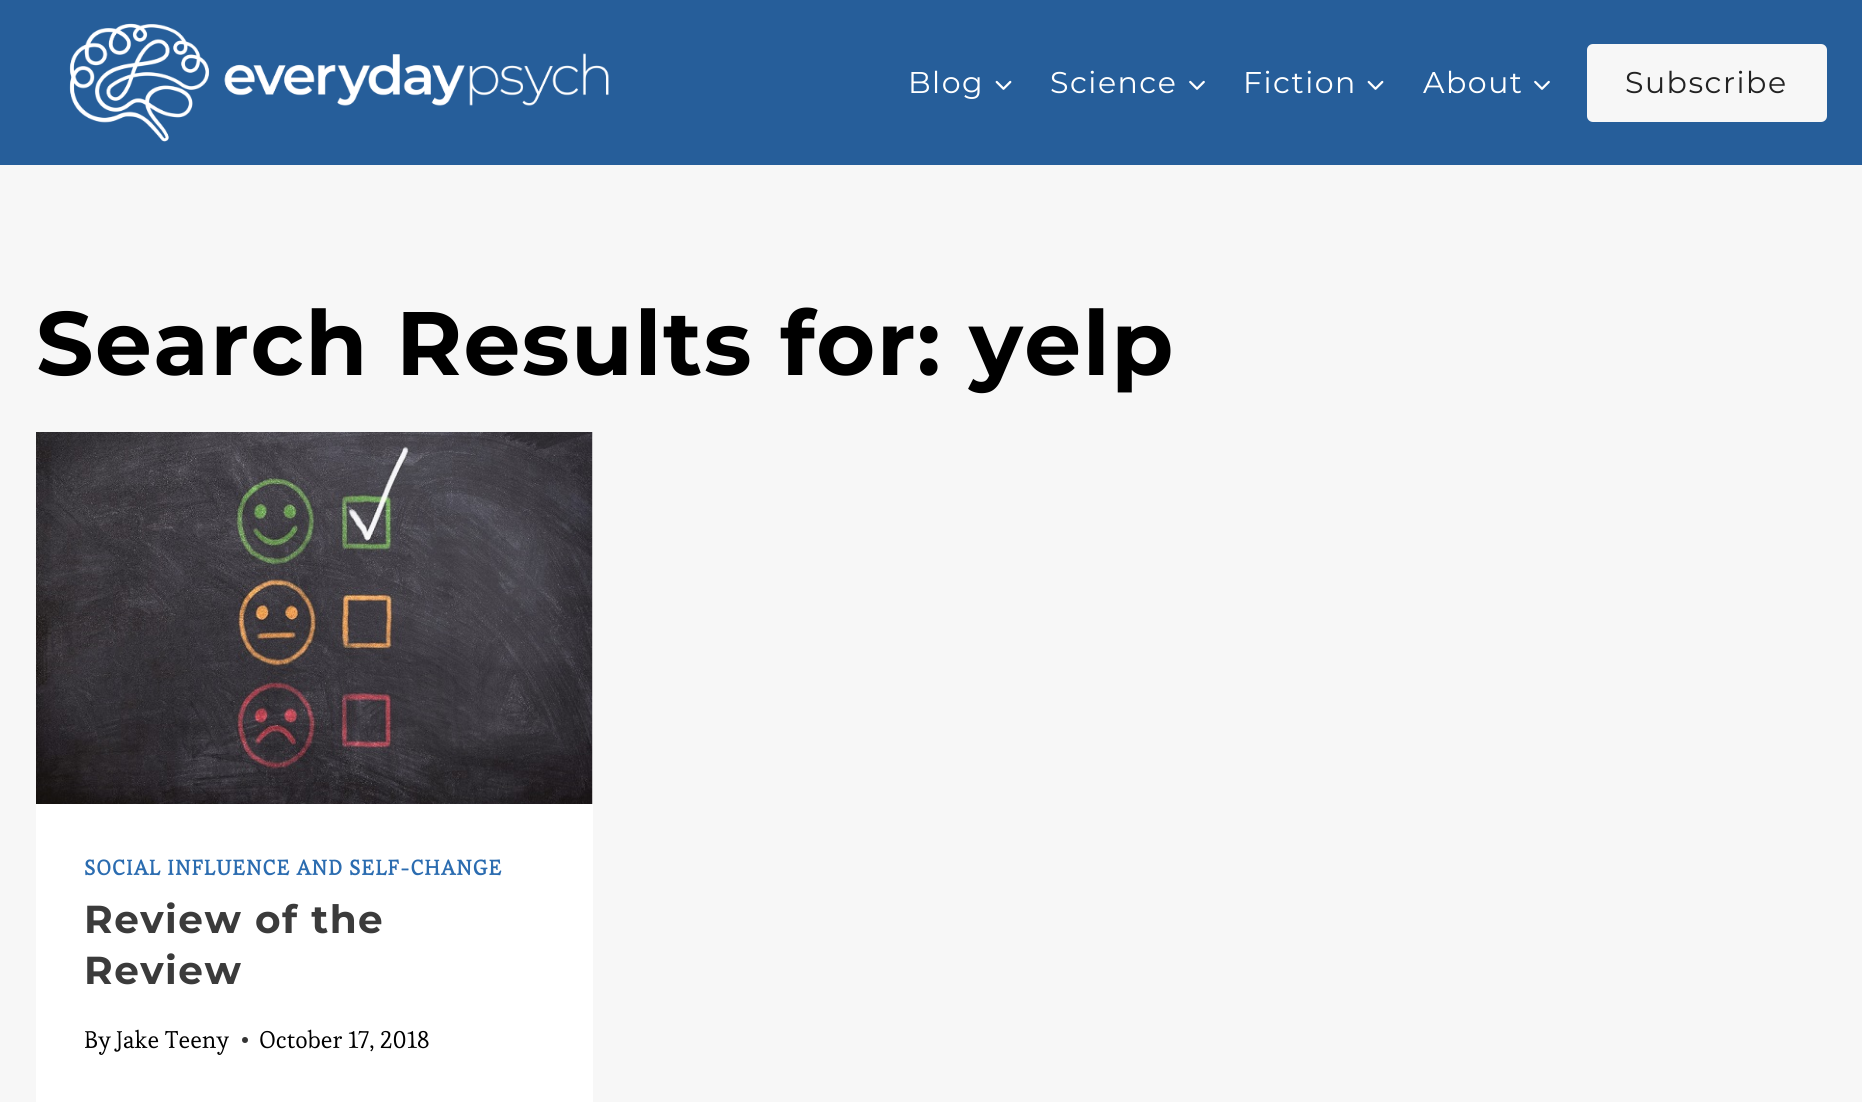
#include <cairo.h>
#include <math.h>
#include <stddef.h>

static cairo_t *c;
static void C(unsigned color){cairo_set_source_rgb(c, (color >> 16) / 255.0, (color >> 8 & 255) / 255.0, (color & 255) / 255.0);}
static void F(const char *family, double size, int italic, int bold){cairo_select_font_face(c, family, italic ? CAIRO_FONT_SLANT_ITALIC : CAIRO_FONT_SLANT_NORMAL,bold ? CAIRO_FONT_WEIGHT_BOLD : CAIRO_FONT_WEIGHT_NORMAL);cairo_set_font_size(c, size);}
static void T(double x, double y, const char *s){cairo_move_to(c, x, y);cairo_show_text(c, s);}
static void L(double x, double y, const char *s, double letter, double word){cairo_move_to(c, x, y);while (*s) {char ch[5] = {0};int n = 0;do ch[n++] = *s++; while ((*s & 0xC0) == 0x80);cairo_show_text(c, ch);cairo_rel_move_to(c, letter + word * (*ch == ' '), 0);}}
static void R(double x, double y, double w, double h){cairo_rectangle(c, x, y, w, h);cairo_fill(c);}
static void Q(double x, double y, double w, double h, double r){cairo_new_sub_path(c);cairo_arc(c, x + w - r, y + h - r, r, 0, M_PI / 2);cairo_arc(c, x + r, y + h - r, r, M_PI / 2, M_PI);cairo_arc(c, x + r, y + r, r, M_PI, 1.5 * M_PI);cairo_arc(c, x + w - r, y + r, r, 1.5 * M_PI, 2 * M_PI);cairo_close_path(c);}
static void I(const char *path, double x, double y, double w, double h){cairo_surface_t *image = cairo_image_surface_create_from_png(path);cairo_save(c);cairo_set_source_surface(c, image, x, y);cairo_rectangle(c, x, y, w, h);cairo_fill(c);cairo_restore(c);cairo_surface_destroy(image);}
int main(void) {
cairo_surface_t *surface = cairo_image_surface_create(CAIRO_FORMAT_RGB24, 1862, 1102);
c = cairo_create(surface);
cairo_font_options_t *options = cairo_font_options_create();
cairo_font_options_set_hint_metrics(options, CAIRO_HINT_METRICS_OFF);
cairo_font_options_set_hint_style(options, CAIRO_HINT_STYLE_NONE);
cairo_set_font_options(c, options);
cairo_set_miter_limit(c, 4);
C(0xf7f7f7);
cairo_paint(c);
C(0x265e9a);
R(0,0,1862,165);
I("1.png",69,23,540,119);
F("Montserrat",30,0,0);
C(0xffffff);
L(908,93,"Blog",1.5,0);
I("2.png",995,80,17,10);
L(1050,93,"Science",1.5,0);
I("3.png",1189,80,16,10);
L(1243,93,"Fiction",1.5,0);
I("2.png",1367,80,17,10);
L(1423,93,"About",1.5,0);
I("3.png",1534,80,16,10);
C(0xf7f7f7);
Q(1587,44,240,78,6);
cairo_fill(c);
C(0x222222);
L(1625,93,"Subscribe",1.5,0);
F("Montserrat",90,0,1);
C(0x000000);
L(36,375,"Search Results for: yelp",1.5,0);
C(0xffffff);
Q(36,432,557,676,6);
cairo_fill(c);
I("4.png",36,432,557,372);
F("Esteban",21,0,1);
C(0x2b6cb0);
L(84,875,"SOCIAL INFLUENCE AND SELF-CHANGE",1.05,0);
F("Montserrat",39,0,1);
C(0x3b3b3b);
L(84,933,"Review of the",1.5,0);
L(84,984,"Review",1.5,0);
F("Esteban",24,0,0);
C(0x000000);
T(84,1048,"By");
T(116,1048,"Jake Teeny");
C(0x333333);
cairo_new_path(c);
cairo_arc(c,245,1040,3,0,2 * M_PI);
cairo_fill(c);
C(0x000000);
T(259,1048,"October 17, 2018");
cairo_surface_write_to_png(surface, "o.png");
cairo_font_options_destroy(options);
cairo_destroy(c);
cairo_surface_destroy(surface);
return 0;
}
